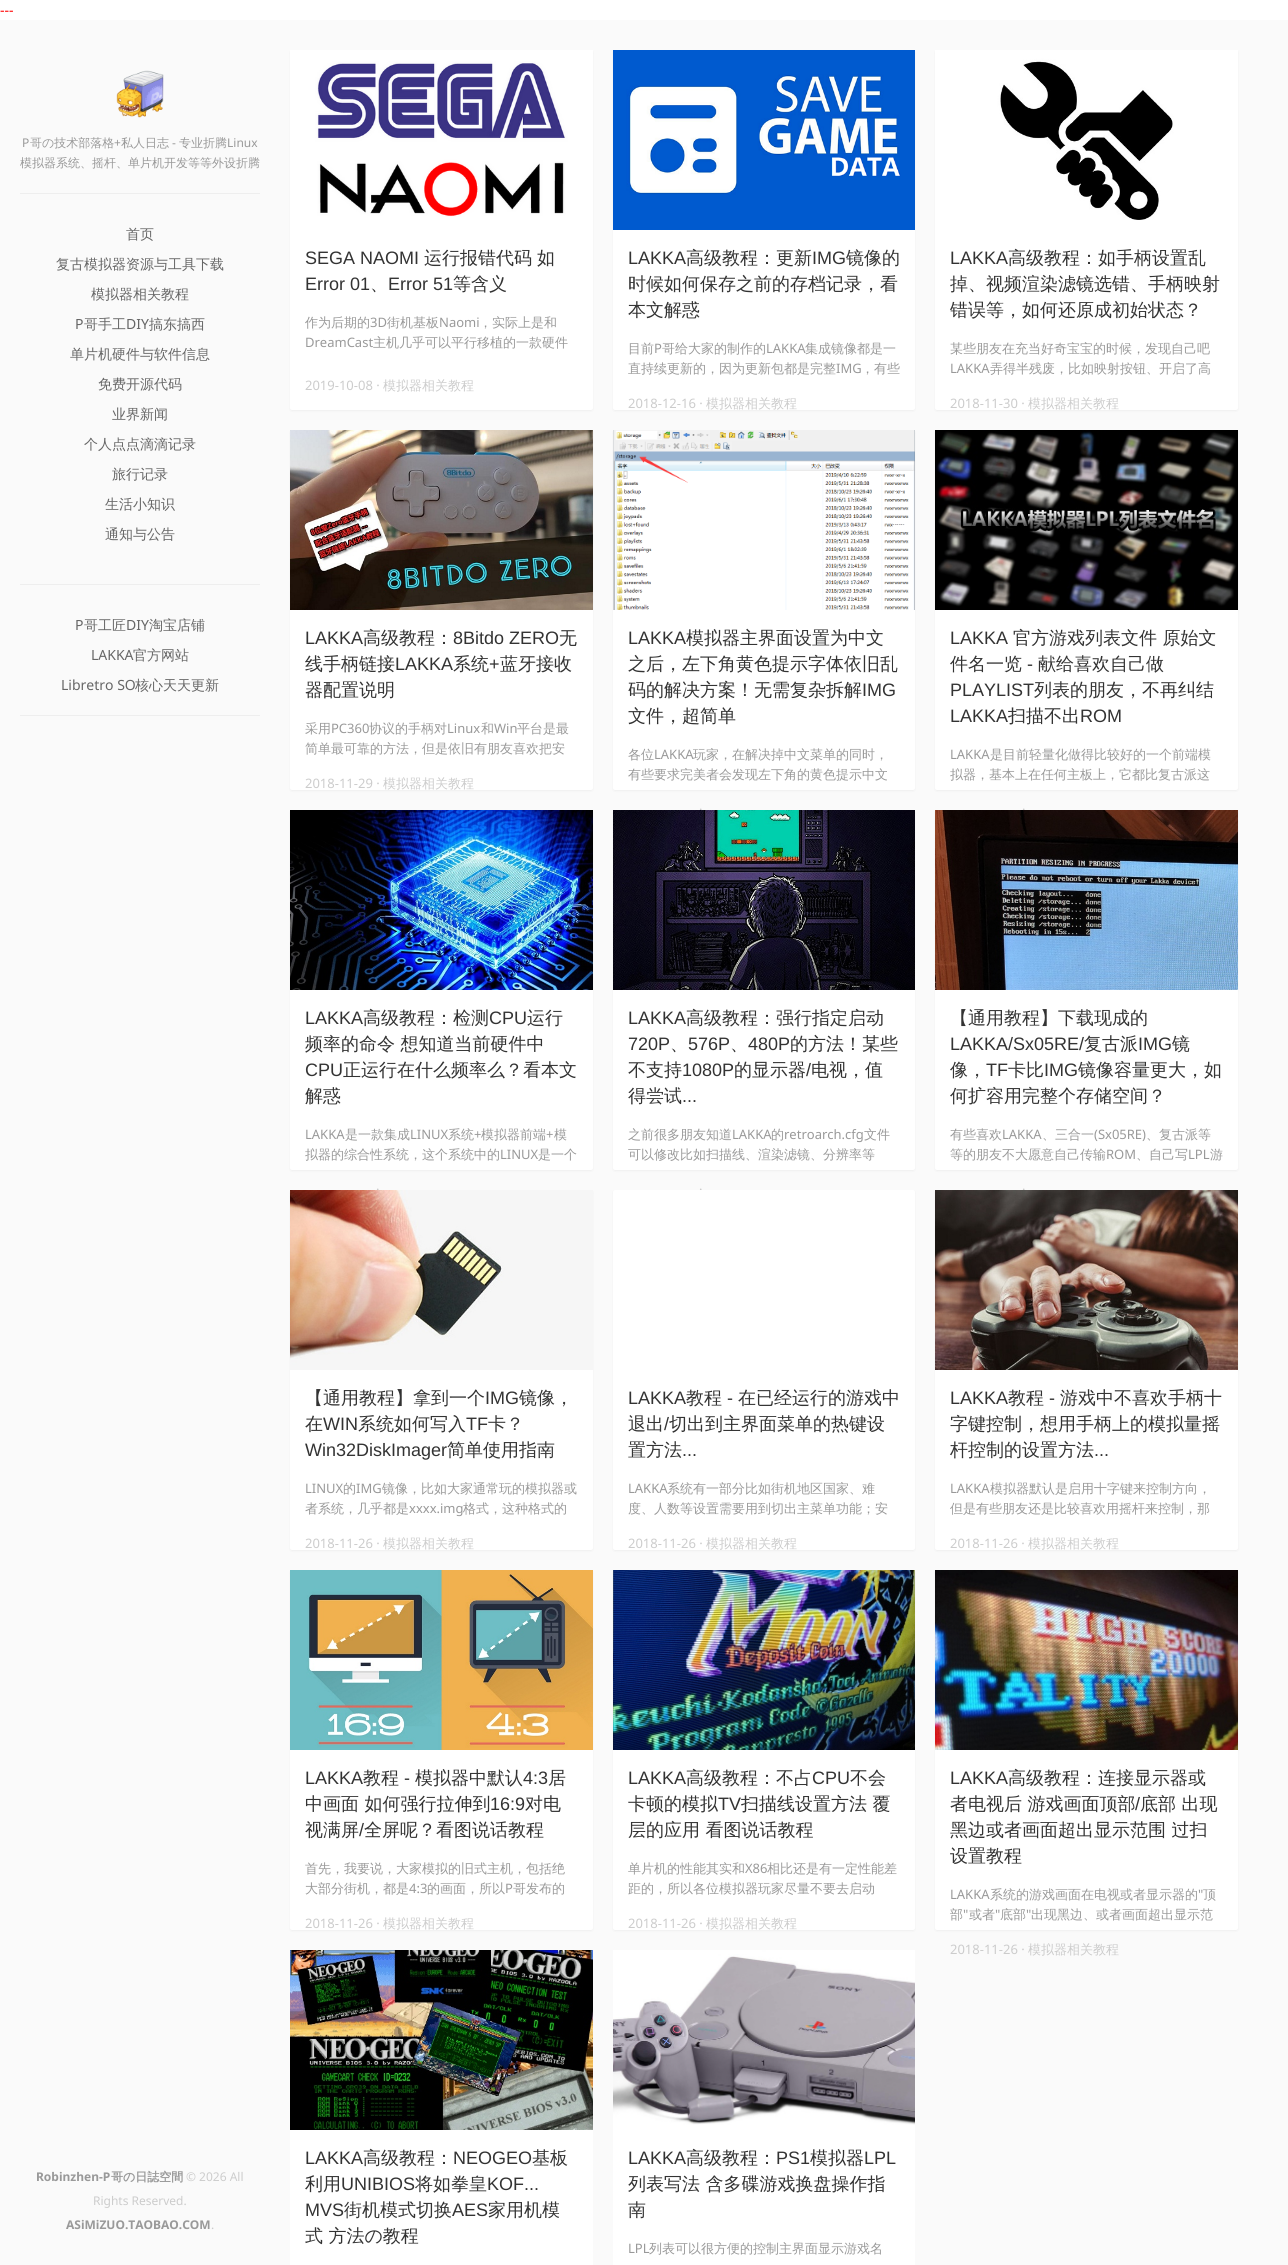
#include <cairo.h>
#include <math.h>
#include <stddef.h>

static cairo_t *c;
static void C(unsigned color){cairo_set_source_rgb(c, (color >> 16) / 255.0, (color >> 8 & 255) / 255.0, (color & 255) / 255.0);}
static void F(const char *family, double size, int italic, int bold){cairo_select_font_face(c, family, italic ? CAIRO_FONT_SLANT_ITALIC : CAIRO_FONT_SLANT_NORMAL,bold ? CAIRO_FONT_WEIGHT_BOLD : CAIRO_FONT_WEIGHT_NORMAL);cairo_set_font_size(c, size);}
static void T(double x, double y, const char *s){cairo_move_to(c, x, y);cairo_show_text(c, s);}
static void R(double x, double y, double w, double h){cairo_rectangle(c, x, y, w, h);cairo_fill(c);}
static void Q(double x, double y, double w, double h, double r){cairo_new_sub_path(c);cairo_arc(c, x + w - r, y + h - r, r, 0, M_PI / 2);cairo_arc(c, x + r, y + h - r, r, M_PI / 2, M_PI);cairo_arc(c, x + r, y + r, r, M_PI, 1.5 * M_PI);cairo_arc(c, x + w - r, y + r, r, 1.5 * M_PI, 2 * M_PI);cairo_close_path(c);}
static void S(double x, double y, double w, double h, double r, double blur, double alpha){cairo_push_group_with_content(c, CAIRO_CONTENT_ALPHA);cairo_set_operator(c, CAIRO_OPERATOR_SOURCE);for (int i = 15; i >= -15 && fmin(w, h) + blur * i / 3 > 0; i -= 2) {double e = blur * i / 6;cairo_set_source_rgba(c, 0, 0, 0, alpha * erfc((i - 1) / 8.5) / 2);Q(x - e, y - e, w + 2 * e, h + 2 * e, fmax(0, fmin(r + e + blur * .6, fmin(w, h) / 2 + e)));cairo_fill(c);}cairo_pattern_t *soft = cairo_pop_group(c);cairo_mask(c, soft);cairo_pattern_destroy(soft);}
static void I(const char *path, double x, double y, double w, double h){cairo_surface_t *image = cairo_image_surface_create_from_png(path);cairo_save(c);cairo_set_source_surface(c, image, x, y);cairo_rectangle(c, x, y, w, h);cairo_fill(c);cairo_restore(c);cairo_surface_destroy(image);}
int main(void) {
cairo_surface_t *surface = cairo_image_surface_create(CAIRO_FORMAT_RGB24, 1288, 2265);
c = cairo_create(surface);
cairo_font_options_t *options = cairo_font_options_create();
cairo_font_options_set_hint_metrics(options, CAIRO_HINT_METRICS_OFF);
cairo_font_options_set_hint_style(options, CAIRO_HINT_STYLE_NONE);
cairo_set_font_options(c, options);
cairo_set_miter_limit(c, 4);
C(0xffffff);
cairo_paint(c);
F("Noto Sans",14,0,0);
C(0xff0000);
T(0,15,"---");
C(0xfafafa);
R(0,20,1288,2245);
I("1.png",116,70,48,48);
F("Noto Sans",12,0,0);
C(0x999999);
T(22,147,"P");
F("WenQuanYi Zen Hei Medium",12,0,0);
T(30,147,"哥の技术部落格");
F("Noto Sans",12,0,0);
T(114,147,"+");
F("WenQuanYi Zen Hei Medium",12,0,0);
T(121,147,"私人日志");
F("Noto Sans",12,0,0);
T(172,147,"-");
F("WenQuanYi Zen Hei Medium",12,0,0);
T(179,147,"专业折腾");
F("Noto Sans",12,0,0);
T(227,147,"Linux");
F("WenQuanYi Zen Hei Medium",12,0,0);
T(20,167,"模拟器系统、摇杆、单片机开发等等外设折腾");
C(0xeeeeee);
R(20,193,240,1);
F("WenQuanYi Zen Hei Medium",14,0,0);
C(0x666666);
T(126,239,"首页");
T(56,269,"复古模拟器资源与工具下载");
T(91,299,"模拟器相关教程");
F("Noto Sans",14,0,0);
T(75,329,"P");
F("WenQuanYi Zen Hei Medium",14,0,0);
T(84,329,"哥手工");
F("Noto Sans",14,0,0);
T(126,329,"DIY");
F("WenQuanYi Zen Hei Medium",14,0,0);
T(149,329,"搞东搞西");
T(70,359,"单片机硬件与软件信息");
T(98,389,"免费开源代码");
T(112,419,"业界新闻");
T(84,449,"个人点点滴滴记录");
T(112,479,"旅行记录");
T(105,509,"生活小知识");
T(105,539,"通知与公告");
C(0xeeeeee);
R(20,584,240,1);
R(20,715,240,1);
F("Noto Sans",14,0,0);
C(0x666666);
T(75,630,"P");
F("WenQuanYi Zen Hei Medium",14,0,0);
T(84,630,"哥工匠");
F("Noto Sans",14,0,0);
T(126,630,"DIY");
F("WenQuanYi Zen Hei Medium",14,0,0);
T(149,630,"淘宝店铺");
F("Noto Sans",14,0,0);
T(91,660,"LAKKA");
F("WenQuanYi Zen Hei Medium",14,0,0);
T(133,660,"官方网站");
F("Noto Sans",14,0,0);
T(61,690,"Libretro SO");
F("WenQuanYi Zen Hei Medium",14,0,0);
T(135,690,"核心天天更新");
C(0x000000);
S(290,51,303,360,2,1,.05);
C(0xffffff);
Q(290,50,303,360,2);
cairo_fill(c);
I("2.png",290,50,303,167);
F("Liberation Sans",18,0,0);
C(0x333333);
T(305,264,"SEGA NAOMI");
F("WenQuanYi Zen Hei Medium",18,0,0);
T(424,264,"运行报错代码");
T(537,264,"如");
F("Liberation Sans",18,0,0);
T(305,290,"Error 01");
F("WenQuanYi Zen Hei Medium",18,0,0);
T(370,290,"、");
F("Liberation Sans",18,0,0);
T(388,290,"Error 51");
F("WenQuanYi Zen Hei Medium",18,0,0);
T(453,290,"等含义");
F("WenQuanYi Zen Hei Medium",13,0,0);
C(0x999999);
T(305,327,"作为后期的");
F("Noto Sans",13,0,0);
T(370,327,"3D");
F("WenQuanYi Zen Hei Medium",13,0,0);
T(387,327,"街机基板");
F("Noto Sans",13,0,0);
T(439,327,"Naomi");
F("WenQuanYi Zen Hei Medium",13,0,0);
T(479,327,"，实际上是和");
F("Noto Sans",13,0,0);
T(305,347,"DreamCast");
F("WenQuanYi Zen Hei Medium",13,0,0);
T(373,347,"主机几乎可以平行移植的一款硬件");
F("Noto Sans",13,0,0);
C(0xcccccc);
T(305,390,"2019-10-08 ·");
F("WenQuanYi Zen Hei Medium",13,0,0);
T(383,390,"模拟器相关教程");
C(0x000000);
S(613,51,302,360,2,1,.05);
C(0xffffff);
Q(613,50,302,360,2);
cairo_fill(c);
I("3.png",613,50,302,180);
F("Liberation Sans",18,0,0);
C(0x333333);
T(628,264,"LAKKA");
F("WenQuanYi Zen Hei Medium",18,0,0);
T(686,264,"高级教程：更新");
F("Liberation Sans",18,0,0);
T(812,264,"IMG");
F("WenQuanYi Zen Hei Medium",18,0,0);
T(846,264,"镜像的");
T(628,290,"时候如何保存之前的存档记录，看");
T(628,316,"本文解惑");
F("WenQuanYi Zen Hei Medium",13,0,0);
C(0x999999);
T(628,353,"目前");
F("Noto Sans",13,0,0);
T(654,353,"P");
F("WenQuanYi Zen Hei Medium",13,0,0);
T(662,353,"哥给大家的制作的");
F("Noto Sans",13,0,0);
T(766,353,"LAKKA");
F("WenQuanYi Zen Hei Medium",13,0,0);
T(805,353,"集成镜像都是一");
T(628,373,"直持续更新的，因为更新包都是完整");
F("Noto Sans",13,0,0);
T(836,373,"IMG");
F("WenQuanYi Zen Hei Medium",13,0,0);
T(861,373,"，有些");
F("Noto Sans",13,0,0);
C(0xcccccc);
T(628,408,"2018-12-16 ·");
F("WenQuanYi Zen Hei Medium",13,0,0);
T(706,408,"模拟器相关教程");
C(0x000000);
S(935,51,303,360,2,1,.05);
C(0xffffff);
Q(935,50,303,360,2);
cairo_fill(c);
I("4.png",935,50,303,170);
F("Liberation Sans",18,0,0);
C(0x333333);
T(950,264,"LAKKA");
F("WenQuanYi Zen Hei Medium",18,0,0);
T(1008,264,"高级教程：如手柄设置乱");
T(950,290,"掉、视频渲染滤镜选错、手柄映射");
T(950,316,"错误等，如何还原成初始状态？");
F("WenQuanYi Zen Hei Medium",13,0,0);
C(0x999999);
T(950,353,"某些朋友在充当好奇宝宝的时候，发现自己吧");
F("Noto Sans",13,0,0);
T(950,373,"LAKKA");
F("WenQuanYi Zen Hei Medium",13,0,0);
T(990,373,"弄得半残废，比如映射按钮、开启了高");
F("Noto Sans",13,0,0);
C(0xcccccc);
T(950,408,"2018-11-30 ·");
F("WenQuanYi Zen Hei Medium",13,0,0);
T(1028,408,"模拟器相关教程");
C(0x000000);
S(290,431,303,360,2,1,.05);
C(0xffffff);
Q(290,430,303,360,2);
cairo_fill(c);
I("5.png",290,430,303,180);
F("Liberation Sans",18,0,0);
C(0x333333);
T(305,644,"LAKKA");
F("WenQuanYi Zen Hei Medium",18,0,0);
T(363,644,"高级教程：");
F("Liberation Sans",18,0,0);
T(453,644,"8Bitdo ZERO");
F("WenQuanYi Zen Hei Medium",18,0,0);
T(559,644,"无");
T(305,670,"线手柄链接");
F("Liberation Sans",18,0,0);
T(395,670,"LAKKA");
F("WenQuanYi Zen Hei Medium",18,0,0);
T(453,670,"系统");
F("Liberation Sans",18,0,0);
T(489,670,"+");
F("WenQuanYi Zen Hei Medium",18,0,0);
T(500,670,"蓝牙接收");
T(305,696,"器配置说明");
F("WenQuanYi Zen Hei Medium",13,0,0);
C(0x999999);
T(305,733,"采用");
F("Noto Sans",13,0,0);
T(331,733,"PC360");
F("WenQuanYi Zen Hei Medium",13,0,0);
T(369,733,"协议的手柄对");
F("Noto Sans",13,0,0);
T(447,733,"Linux");
F("WenQuanYi Zen Hei Medium",13,0,0);
T(481,733,"和");
F("Noto Sans",13,0,0);
T(494,733,"Win");
F("WenQuanYi Zen Hei Medium",13,0,0);
T(517,733,"平台是最");
T(305,753,"简单最可靠的方法，但是依旧有朋友喜欢把安");
F("Noto Sans",13,0,0);
C(0xcccccc);
T(305,788,"2018-11-29 ·");
F("WenQuanYi Zen Hei Medium",13,0,0);
T(383,788,"模拟器相关教程");
C(0x000000);
S(613,431,302,360,2,1,.05);
C(0xffffff);
Q(613,430,302,360,2);
cairo_fill(c);
I("6.png",613,430,302,180);
F("Liberation Sans",18,0,0);
C(0x333333);
T(628,644,"LAKKA");
F("WenQuanYi Zen Hei Medium",18,0,0);
T(686,644,"模拟器主界面设置为中文");
T(628,670,"之后，左下角黄色提示字体依旧乱");
T(628,696,"码的解决方案！无需复杂拆解");
F("Liberation Sans",18,0,0);
T(862,696,"IMG");
F("WenQuanYi Zen Hei Medium",18,0,0);
T(628,722,"文件，超简单");
F("WenQuanYi Zen Hei Medium",13,0,0);
C(0x999999);
T(628,759,"各位");
F("Noto Sans",13,0,0);
T(654,759,"LAKKA");
F("WenQuanYi Zen Hei Medium",13,0,0);
T(693,759,"玩家，在解决掉中文菜单的同时，");
T(628,779,"有些要求完美者会发现左下角的黄色提示中文");
F("Noto Sans",13,0,0);
C(0xcccccc);
T(699,814,"·");
C(0x000000);
S(935,431,303,360,2,1,.05);
C(0xffffff);
Q(935,430,303,360,2);
cairo_fill(c);
I("7.png",935,430,303,180);
F("Liberation Sans",18,0,0);
C(0x333333);
T(950,644,"LAKKA");
F("WenQuanYi Zen Hei Medium",18,0,0);
T(1013,644,"官方游戏列表文件 原始文");
T(950,670,"件名一览");
F("Liberation Sans",18,0,0);
T(1027,670,"-");
F("WenQuanYi Zen Hei Medium",18,0,0);
T(1038,670,"献给喜欢自己做");
F("Liberation Sans",18,0,0);
T(950,696,"PLAYLIST");
F("WenQuanYi Zen Hei Medium",18,0,0);
T(1034,696,"列表的朋友，不再纠结");
F("Liberation Sans",18,0,0);
T(950,722,"LAKKA");
F("WenQuanYi Zen Hei Medium",18,0,0);
T(1008,722,"扫描不出");
F("Liberation Sans",18,0,0);
T(1080,722,"ROM");
F("Noto Sans",13,0,0);
C(0x999999);
T(950,759,"LAKKA");
F("WenQuanYi Zen Hei Medium",13,0,0);
T(990,759,"是目前轻量化做得比较好的一个前端模");
T(950,779,"拟器，基本上在任何主板上，它都比复古派这");
F("Noto Sans",13,0,0);
C(0xcccccc);
T(1022,814,"·");
C(0x000000);
S(290,811,303,360,2,1,.05);
C(0xffffff);
Q(290,810,303,360,2);
cairo_fill(c);
I("8.png",290,810,303,180);
F("Liberation Sans",18,0,0);
C(0x333333);
T(305,1024,"LAKKA");
F("WenQuanYi Zen Hei Medium",18,0,0);
T(363,1024,"高级教程：检测");
F("Liberation Sans",18,0,0);
T(489,1024,"CPU");
F("WenQuanYi Zen Hei Medium",18,0,0);
T(527,1024,"运行");
T(305,1050,"频率的命令 想知道当前硬件中");
F("Liberation Sans",18,0,0);
T(305,1076,"CPU");
F("WenQuanYi Zen Hei Medium",18,0,0);
T(343,1076,"正运行在什么频率么？看本文");
T(305,1102,"解惑");
F("Noto Sans",13,0,0);
C(0x999999);
T(305,1139,"LAKKA");
F("WenQuanYi Zen Hei Medium",13,0,0);
T(345,1139,"是一款集成");
F("Noto Sans",13,0,0);
T(410,1139,"LINUX");
F("WenQuanYi Zen Hei Medium",13,0,0);
T(448,1139,"系统");
F("Noto Sans",13,0,0);
T(474,1139,"+");
F("WenQuanYi Zen Hei Medium",13,0,0);
T(481,1139,"模拟器前端");
F("Noto Sans",13,0,0);
T(546,1139,"+");
F("WenQuanYi Zen Hei Medium",13,0,0);
T(554,1139,"模");
T(305,1159,"拟器的综合性系统，这个系统中的");
F("Noto Sans",13,0,0);
T(500,1159,"LINUX");
F("WenQuanYi Zen Hei Medium",13,0,0);
T(538,1159,"是一个");
F("Noto Sans",13,0,0);
C(0xcccccc);
T(376,1194,"·");
C(0x000000);
S(613,811,302,360,2,1,.05);
C(0xffffff);
Q(613,810,302,360,2);
cairo_fill(c);
I("9.png",613,810,302,180);
F("Liberation Sans",18,0,0);
C(0x333333);
T(628,1024,"LAKKA");
F("WenQuanYi Zen Hei Medium",18,0,0);
T(686,1024,"高级教程：强行指定启动");
F("Liberation Sans",18,0,0);
T(628,1050,"720P");
F("WenQuanYi Zen Hei Medium",18,0,0);
T(670,1050,"、");
F("Liberation Sans",18,0,0);
T(688,1050,"576P");
F("WenQuanYi Zen Hei Medium",18,0,0);
T(730,1050,"、");
F("Liberation Sans",18,0,0);
T(748,1050,"480P");
F("WenQuanYi Zen Hei Medium",18,0,0);
T(790,1050,"的方法！某些");
T(628,1076,"不支持");
F("Liberation Sans",18,0,0);
T(682,1076,"1080P");
F("WenQuanYi Zen Hei Medium",18,0,0);
T(734,1076,"的显示器");
F("Liberation Sans",18,0,0);
T(806,1076,"/");
F("WenQuanYi Zen Hei Medium",18,0,0);
T(811,1076,"电视，值");
T(628,1102,"得尝试");
F("Liberation Sans",18,0,0);
T(682,1102,"...");
F("WenQuanYi Zen Hei Medium",13,0,0);
C(0x999999);
T(628,1139,"之前很多朋友知道");
F("Noto Sans",13,0,0);
T(732,1139,"LAKKA");
F("WenQuanYi Zen Hei Medium",13,0,0);
T(771,1139,"的");
F("Noto Sans",13,0,0);
T(784,1139,"retroarch.cfg");
F("WenQuanYi Zen Hei Medium",13,0,0);
T(864,1139,"文件");
T(628,1159,"可以修改比如扫描线、渲染滤镜、分辨率等");
F("Noto Sans",13,0,0);
C(0xcccccc);
T(699,1194,"·");
C(0x000000);
S(935,811,303,360,2,1,.05);
C(0xffffff);
Q(935,810,303,360,2);
cairo_fill(c);
I("10.png",935,810,303,180);
F("WenQuanYi Zen Hei Medium",18,0,0);
C(0x333333);
T(950,1024,"【通用教程】下载现成的");
F("Liberation Sans",18,0,0);
T(950,1050,"LAKKA/Sx05RE/");
F("WenQuanYi Zen Hei Medium",18,0,0);
T(1084,1050,"复古派");
F("Liberation Sans",18,0,0);
T(1138,1050,"IMG");
F("WenQuanYi Zen Hei Medium",18,0,0);
T(1172,1050,"镜");
T(950,1076,"像，");
F("Liberation Sans",18,0,0);
T(986,1076,"TF");
F("WenQuanYi Zen Hei Medium",18,0,0);
T(1008,1076,"卡比");
F("Liberation Sans",18,0,0);
T(1044,1076,"IMG");
F("WenQuanYi Zen Hei Medium",18,0,0);
T(1078,1076,"镜像容量更大，如");
T(950,1102,"何扩容用完整个存储空间？");
F("WenQuanYi Zen Hei Medium",13,0,0);
C(0x999999);
T(950,1139,"有些喜欢");
F("Noto Sans",13,0,0);
T(1002,1139,"LAKKA");
F("WenQuanYi Zen Hei Medium",13,0,0);
T(1042,1139,"、三合一");
F("Noto Sans",13,0,0);
T(1094,1139,"(Sx05RE)");
F("WenQuanYi Zen Hei Medium",13,0,0);
T(1146,1139,"、复古派等");
T(950,1159,"等的朋友不大愿意自己传输");
F("Noto Sans",13,0,0);
T(1106,1159,"ROM");
F("WenQuanYi Zen Hei Medium",13,0,0);
T(1136,1159,"、自己写");
F("Noto Sans",13,0,0);
T(1188,1159,"LPL");
F("WenQuanYi Zen Hei Medium",13,0,0);
T(1210,1159,"游");
F("Noto Sans",13,0,0);
C(0xcccccc);
T(1022,1194,"·");
C(0x000000);
S(290,1191,303,360,2,1,.05);
C(0xffffff);
Q(290,1190,303,360,2);
cairo_fill(c);
I("11.png",290,1190,303,180);
F("WenQuanYi Zen Hei Medium",18,0,0);
C(0x333333);
T(305,1404,"【通用教程】拿到一个");
F("Liberation Sans",18,0,0);
T(485,1404,"IMG");
F("WenQuanYi Zen Hei Medium",18,0,0);
T(519,1404,"镜像，");
T(305,1430,"在");
F("Liberation Sans",18,0,0);
T(323,1430,"WIN");
F("WenQuanYi Zen Hei Medium",18,0,0);
T(358,1430,"系统如何写入");
F("Liberation Sans",18,0,0);
T(466,1430,"TF");
F("WenQuanYi Zen Hei Medium",18,0,0);
T(488,1430,"卡？");
F("Liberation Sans",18,0,0);
T(305,1456,"Win32DiskImager");
F("WenQuanYi Zen Hei Medium",18,0,0);
T(447,1456,"简单使用指南");
F("Noto Sans",13,0,0);
C(0x999999);
T(305,1493,"LINUX");
F("WenQuanYi Zen Hei Medium",13,0,0);
T(343,1493,"的");
F("Noto Sans",13,0,0);
T(356,1493,"IMG");
F("WenQuanYi Zen Hei Medium",13,0,0);
T(382,1493,"镜像，比如大家通常玩的模拟器或");
T(305,1513,"者系统，几乎都是");
F("Noto Sans",13,0,0);
T(409,1513,"xxxx.img");
F("WenQuanYi Zen Hei Medium",13,0,0);
T(463,1513,"格式，这种格式的");
F("Noto Sans",13,0,0);
C(0xcccccc);
T(305,1548,"2018-11-26 ·");
F("WenQuanYi Zen Hei Medium",13,0,0);
T(383,1548,"模拟器相关教程");
C(0x000000);
S(613,1191,302,360,2,1,.05);
C(0xffffff);
Q(613,1190,302,360,2);
cairo_fill(c);
F("Liberation Sans",18,0,0);
C(0x333333);
T(628,1404,"LAKKA");
F("WenQuanYi Zen Hei Medium",18,0,0);
T(686,1404,"教程");
F("Liberation Sans",18,0,0);
T(727,1404,"-");
F("WenQuanYi Zen Hei Medium",18,0,0);
T(738,1404,"在已经运行的游戏中");
T(628,1430,"退出");
F("Liberation Sans",18,0,0);
T(664,1430,"/");
F("WenQuanYi Zen Hei Medium",18,0,0);
T(669,1430,"切出到主界面菜单的热键设");
T(628,1456,"置方法");
F("Liberation Sans",18,0,0);
T(682,1456,"...");
F("Noto Sans",13,0,0);
C(0x999999);
T(628,1493,"LAKKA");
F("WenQuanYi Zen Hei Medium",13,0,0);
T(667,1493,"系统有一部分比如街机地区国家、难");
T(628,1513,"度、人数等设置需要用到切出主菜单功能；安");
F("Noto Sans",13,0,0);
C(0xcccccc);
T(628,1548,"2018-11-26 ·");
F("WenQuanYi Zen Hei Medium",13,0,0);
T(706,1548,"模拟器相关教程");
C(0x000000);
S(935,1191,303,360,2,1,.05);
C(0xffffff);
Q(935,1190,303,360,2);
cairo_fill(c);
I("12.png",935,1190,303,180);
F("Liberation Sans",18,0,0);
C(0x333333);
T(950,1404,"LAKKA");
F("WenQuanYi Zen Hei Medium",18,0,0);
T(1008,1404,"教程");
F("Liberation Sans",18,0,0);
T(1049,1404,"-");
F("WenQuanYi Zen Hei Medium",18,0,0);
T(1060,1404,"游戏中不喜欢手柄十");
T(950,1430,"字键控制，想用手柄上的模拟量摇");
T(950,1456,"杆控制的设置方法");
F("Liberation Sans",18,0,0);
T(1094,1456,"...");
F("Noto Sans",13,0,0);
C(0x999999);
T(950,1493,"LAKKA");
F("WenQuanYi Zen Hei Medium",13,0,0);
T(990,1493,"模拟器默认是启用十字键来控制方向，");
T(950,1513,"但是有些朋友还是比较喜欢用摇杆来控制，那");
F("Noto Sans",13,0,0);
C(0xcccccc);
T(950,1548,"2018-11-26 ·");
F("WenQuanYi Zen Hei Medium",13,0,0);
T(1028,1548,"模拟器相关教程");
C(0x000000);
S(290,1571,303,360,2,1,.05);
C(0xffffff);
Q(290,1570,303,360,2);
cairo_fill(c);
I("13.png",290,1570,303,180);
F("Liberation Sans",18,0,0);
C(0x333333);
T(305,1784,"LAKKA");
F("WenQuanYi Zen Hei Medium",18,0,0);
T(363,1784,"教程");
F("Liberation Sans",18,0,0);
T(404,1784,"-");
F("WenQuanYi Zen Hei Medium",18,0,0);
T(415,1784,"模拟器中默认");
F("Liberation Sans",18,0,0);
T(523,1784,"4:3");
F("WenQuanYi Zen Hei Medium",18,0,0);
T(548,1784,"居");
T(305,1810,"中画面 如何强行拉伸到");
F("Liberation Sans",18,0,0);
T(490,1810,"16:9");
F("WenQuanYi Zen Hei Medium",18,0,0);
T(525,1810,"对电");
T(305,1836,"视满屏");
F("Liberation Sans",18,0,0);
T(359,1836,"/");
F("WenQuanYi Zen Hei Medium",18,0,0);
T(364,1836,"全屏呢？看图说话教程");
F("WenQuanYi Zen Hei Medium",13,0,0);
C(0x999999);
T(305,1873,"首先，我要说，大家模拟的旧式主机，包括绝");
T(305,1893,"大部分街机，都是");
F("Noto Sans",13,0,0);
T(409,1893,"4:3");
F("WenQuanYi Zen Hei Medium",13,0,0);
T(427,1893,"的画面，所以");
F("Noto Sans",13,0,0);
T(505,1893,"P");
F("WenQuanYi Zen Hei Medium",13,0,0);
T(513,1893,"哥发布的");
F("Noto Sans",13,0,0);
C(0xcccccc);
T(305,1928,"2018-11-26 ·");
F("WenQuanYi Zen Hei Medium",13,0,0);
T(383,1928,"模拟器相关教程");
C(0x000000);
S(613,1571,302,360,2,1,.05);
C(0xffffff);
Q(613,1570,302,360,2);
cairo_fill(c);
I("14.png",613,1570,302,180);
F("Liberation Sans",18,0,0);
C(0x333333);
T(628,1784,"LAKKA");
F("WenQuanYi Zen Hei Medium",18,0,0);
T(686,1784,"高级教程：不占");
F("Liberation Sans",18,0,0);
T(812,1784,"CPU");
F("WenQuanYi Zen Hei Medium",18,0,0);
T(850,1784,"不会");
T(628,1810,"卡顿的模拟");
F("Liberation Sans",18,0,0);
T(718,1810,"TV");
F("WenQuanYi Zen Hei Medium",18,0,0);
T(741,1810,"扫描线设置方法 覆");
T(628,1836,"层的应用 看图说话教程");
F("WenQuanYi Zen Hei Medium",13,0,0);
C(0x999999);
T(628,1873,"单片机的性能其实和");
F("Noto Sans",13,0,0);
T(745,1873,"X86");
F("WenQuanYi Zen Hei Medium",13,0,0);
T(767,1873,"相比还是有一定性能差");
T(628,1893,"距的，所以各位模拟器玩家尽量不要去启动");
F("Noto Sans",13,0,0);
C(0xcccccc);
T(628,1928,"2018-11-26 ·");
F("WenQuanYi Zen Hei Medium",13,0,0);
T(706,1928,"模拟器相关教程");
C(0x000000);
S(935,1571,303,360,2,1,.05);
C(0xffffff);
Q(935,1570,303,360,2);
cairo_fill(c);
I("15.png",935,1570,303,180);
F("Liberation Sans",18,0,0);
C(0x333333);
T(950,1784,"LAKKA");
F("WenQuanYi Zen Hei Medium",18,0,0);
T(1008,1784,"高级教程：连接显示器或");
T(950,1810,"者电视后 游戏画面顶部");
F("Liberation Sans",18,0,0);
T(1135,1810,"/");
F("WenQuanYi Zen Hei Medium",18,0,0);
T(1140,1810,"底部 出现");
T(950,1836,"黑边或者画面超出显示范围 过扫");
T(950,1862,"设置教程");
F("Noto Sans",13,0,0);
C(0x999999);
T(950,1899,"LAKKA");
F("WenQuanYi Zen Hei Medium",13,0,0);
T(990,1899,"系统的游戏画面在电视或者显示器的");
F("Noto Sans",13,0,0);
T(1198,1899,"\"");
F("WenQuanYi Zen Hei Medium",13,0,0);
T(1203,1899,"顶");
T(950,1919,"部");
F("Noto Sans",13,0,0);
T(963,1919,"\"");
F("WenQuanYi Zen Hei Medium",13,0,0);
T(969,1919,"或者");
F("Noto Sans",13,0,0);
T(995,1919,"\"");
F("WenQuanYi Zen Hei Medium",13,0,0);
T(1000,1919,"底部");
F("Noto Sans",13,0,0);
T(1026,1919,"\"");
F("WenQuanYi Zen Hei Medium",13,0,0);
T(1031,1919,"出现黑边、或者画面超出显示范");
F("Noto Sans",13,0,0);
C(0xcccccc);
T(950,1954,"2018-11-26 ·");
F("WenQuanYi Zen Hei Medium",13,0,0);
T(1028,1954,"模拟器相关教程");
C(0xffffff);
R(290,2130,303,135);
I("16.png",290,1950,303,180);
F("Liberation Sans",18,0,0);
C(0x333333);
T(305,2164,"LAKKA");
F("WenQuanYi Zen Hei Medium",18,0,0);
T(363,2164,"高级教程：");
F("Liberation Sans",18,0,0);
T(453,2164,"NEOGEO");
F("WenQuanYi Zen Hei Medium",18,0,0);
T(532,2164,"基板");
T(305,2190,"利用");
F("Liberation Sans",18,0,0);
T(341,2190,"UNIBIOS");
F("WenQuanYi Zen Hei Medium",18,0,0);
T(415,2190,"将如拳皇");
F("Liberation Sans",18,0,0);
T(487,2190,"KOF...");
T(305,2216,"MVS");
F("WenQuanYi Zen Hei Medium",18,0,0);
T(344,2216,"街机模式切换");
F("Liberation Sans",18,0,0);
T(452,2216,"AES");
F("WenQuanYi Zen Hei Medium",18,0,0);
T(488,2216,"家用机模");
T(305,2242,"式 方法の教程");
C(0xffffff);
R(613,2125,302,140);
I("17.png",613,1950,302,175);
F("Liberation Sans",18,0,0);
C(0x333333);
T(628,2164,"LAKKA");
F("WenQuanYi Zen Hei Medium",18,0,0);
T(686,2164,"高级教程：");
F("Liberation Sans",18,0,0);
T(776,2164,"PS1");
F("WenQuanYi Zen Hei Medium",18,0,0);
T(810,2164,"模拟器");
F("Liberation Sans",18,0,0);
T(864,2164,"LPL");
F("WenQuanYi Zen Hei Medium",18,0,0);
T(628,2190,"列表写法 含多碟游戏换盘操作指");
T(628,2216,"南");
F("Noto Sans",13,0,0);
C(0x999999);
T(628,2253,"LPL");
F("WenQuanYi Zen Hei Medium",13,0,0);
T(649,2253,"列表可以很方便的控制主界面显示游戏名");
F("Noto Sans",12,0,1);
T(36,2181,"Robinzhen-P");
F("WenQuanYi Zen Hei",12,0,1);
T(111,2181,"哥の日誌空間");
F("Noto Sans",12,0,0);
C(0xcccccc);
T(186,2181,"© 2026 All");
T(93,2205,"Rights Reserved.");
F("Noto Sans",12,0,1);
C(0x999999);
T(66,2229,"ASiMiZUO.TAOBAO.COM");
F("Noto Sans",12,0,0);
C(0xcccccc);
T(211,2229,".");
cairo_surface_write_to_png(surface, "o.png");
cairo_font_options_destroy(options);
cairo_destroy(c);
cairo_surface_destroy(surface);
return 0;
}
